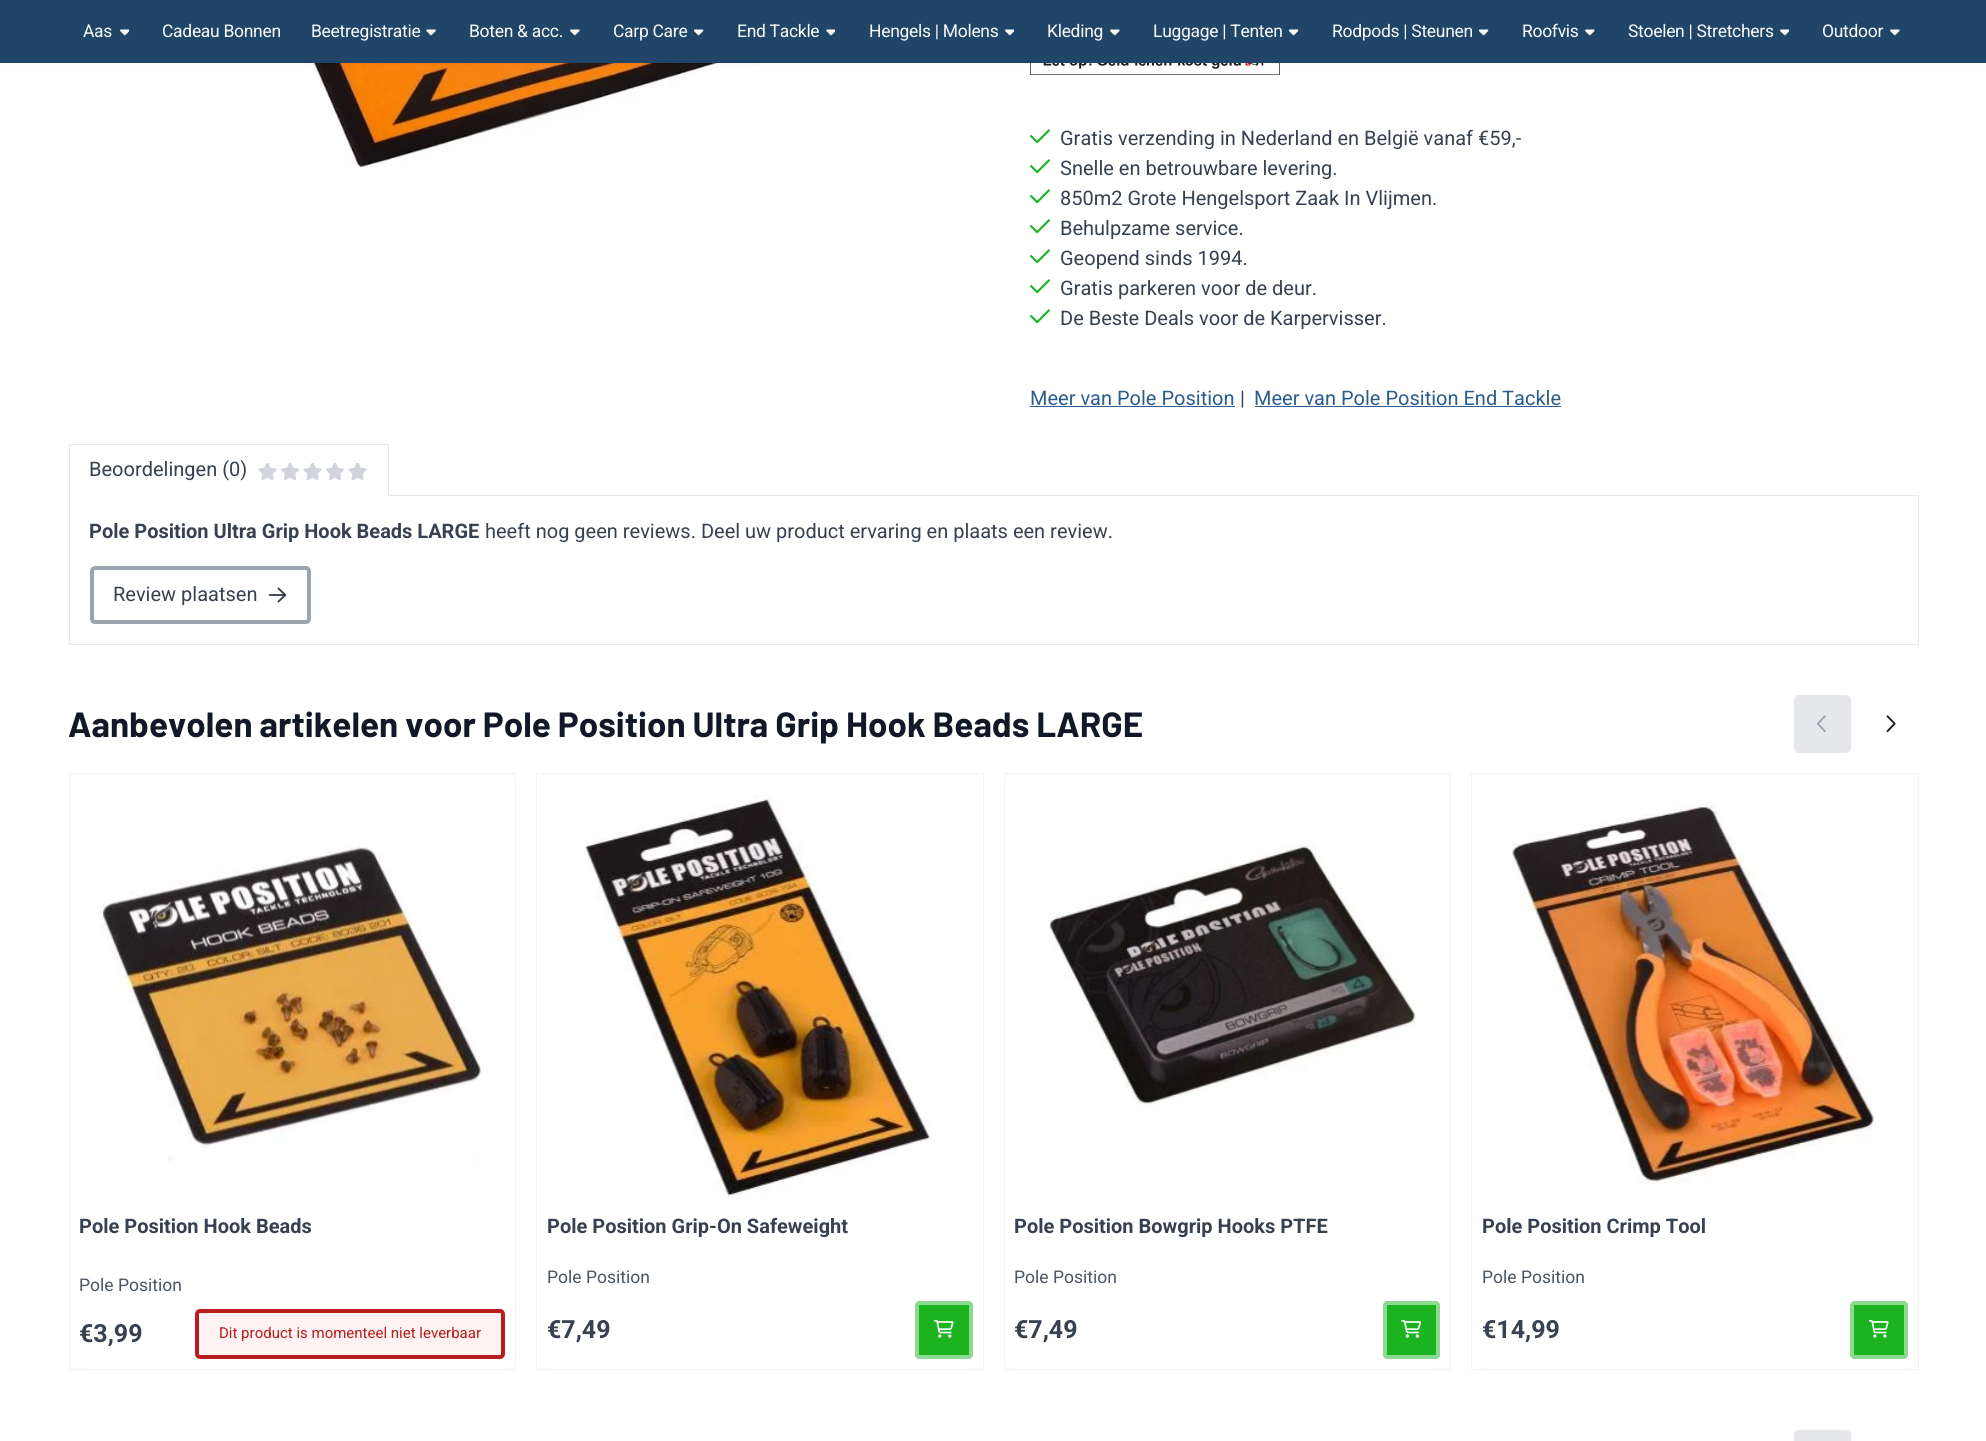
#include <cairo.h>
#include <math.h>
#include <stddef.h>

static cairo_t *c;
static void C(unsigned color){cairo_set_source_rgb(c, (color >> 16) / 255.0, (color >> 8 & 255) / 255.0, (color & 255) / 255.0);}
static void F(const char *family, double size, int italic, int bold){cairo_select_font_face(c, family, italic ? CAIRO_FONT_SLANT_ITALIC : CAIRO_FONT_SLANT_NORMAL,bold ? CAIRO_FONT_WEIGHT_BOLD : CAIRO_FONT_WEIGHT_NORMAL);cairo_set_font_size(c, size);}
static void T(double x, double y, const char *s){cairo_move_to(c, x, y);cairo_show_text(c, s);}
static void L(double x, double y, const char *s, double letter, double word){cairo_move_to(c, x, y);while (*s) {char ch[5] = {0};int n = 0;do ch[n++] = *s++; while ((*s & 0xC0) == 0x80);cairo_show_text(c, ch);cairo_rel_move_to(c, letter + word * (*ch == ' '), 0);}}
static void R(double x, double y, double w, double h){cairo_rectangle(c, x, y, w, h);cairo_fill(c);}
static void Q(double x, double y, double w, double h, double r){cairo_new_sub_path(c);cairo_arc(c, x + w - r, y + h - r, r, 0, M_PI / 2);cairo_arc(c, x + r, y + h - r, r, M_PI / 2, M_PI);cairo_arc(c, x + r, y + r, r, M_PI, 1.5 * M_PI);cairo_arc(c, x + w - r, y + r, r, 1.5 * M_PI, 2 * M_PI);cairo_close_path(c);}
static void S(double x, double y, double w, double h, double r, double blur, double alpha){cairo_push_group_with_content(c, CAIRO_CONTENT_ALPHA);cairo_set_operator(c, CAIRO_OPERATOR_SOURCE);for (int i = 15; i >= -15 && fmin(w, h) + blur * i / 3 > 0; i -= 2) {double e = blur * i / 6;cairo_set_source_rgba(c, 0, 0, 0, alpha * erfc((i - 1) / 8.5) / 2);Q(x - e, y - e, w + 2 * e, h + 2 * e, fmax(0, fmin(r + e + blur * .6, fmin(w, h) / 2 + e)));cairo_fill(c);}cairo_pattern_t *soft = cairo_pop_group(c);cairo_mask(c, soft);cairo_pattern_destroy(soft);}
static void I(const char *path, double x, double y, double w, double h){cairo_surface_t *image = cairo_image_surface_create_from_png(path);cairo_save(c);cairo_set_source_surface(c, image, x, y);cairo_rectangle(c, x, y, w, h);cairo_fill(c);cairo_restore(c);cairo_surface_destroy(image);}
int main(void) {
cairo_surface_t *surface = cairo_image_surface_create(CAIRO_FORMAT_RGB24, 1986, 1441);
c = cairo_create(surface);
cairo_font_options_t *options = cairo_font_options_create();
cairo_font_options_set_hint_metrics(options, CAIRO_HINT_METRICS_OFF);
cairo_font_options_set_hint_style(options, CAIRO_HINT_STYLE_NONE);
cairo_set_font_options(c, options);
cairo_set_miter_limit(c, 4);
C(0xffffff);
cairo_paint(c);
I("6.png",286,63,571,105);
I("7.png",1030,63,250,12);
C(0x000000);
S(0,1,1986,63,0,1,.05);
C(0x214569);
R(0,0,1986,63);
F("Roboto",17.5,0,0);
C(0xf9fafb);
L(83,37,"Aas",-.3,0);
I("1.png",120,29,9,7);
L(162,37,"Cadeau Bonnen",-.3,0);
L(311,37,"Beetregistratie",-.3,0);
I("2.png",426,29,10,7);
L(469,37,"Boten & acc.",-.3,0);
I("3.png",570,29,10,7);
L(613,37,"Carp Care",-.3,0);
I("4.png",694,29,10,7);
L(737,37,"End Tackle",-.3,0);
I("5.png",826,29,9,7);
L(869,37,"Hengels | Molens",-.3,0);
I("1.png",1005,29,9,7);
L(1047,37,"Kleding",-.3,0);
I("3.png",1110,29,10,7);
L(1153,37,"Luggage | Tenten",-.3,0);
I("4.png",1289,29,10,7);
L(1332,37,"Rodpods | Steunen",-.3,0);
I("4.png",1479,29,10,7);
L(1522,37,"Roofvis",-.3,0);
I("3.png",1585,29,10,7);
L(1628,37,"Stoelen | Stretchers",-.3,0);
I("1.png",1780,29,9,7);
L(1822,37,"Outdoor",-.3,0);
I("3.png",1890,29,10,7);
I("8.png",1030,129,20,15);
F("Roboto",20,0,0);
C(0x374151);
T(1060,145,"Gratis verzending in Nederland en België vanaf €59,-");
I("8.png",1030,159,20,15);
T(1060,175,"Snelle en betrouwbare levering.");
I("8.png",1030,189,20,15);
T(1060,205,"850m2 Grote Hengelsport Zaak In Vlijmen.");
I("8.png",1030,219,20,15);
T(1060,235,"Behulpzame service.");
I("8.png",1030,249,20,15);
T(1060,265,"Geopend sinds 1994.");
I("8.png",1030,279,20,15);
T(1060,295,"Gratis parkeren voor de deur.");
I("8.png",1030,309,20,15);
T(1060,325,"De Beste Deals voor de Karpervisser.");
C(0x2c5c8c);
T(1030,405,"Meer van Pole Position");
R(1030,406,205,1);
C(0x374151);
T(1240,405,"|");
C(0x2c5c8c);
T(1254,405,"Meer van Pole Position End Tackle");
R(1255,406,306,1);
C(0xe5e7eb);
R(69,444,320,1);
cairo_rectangle(c,69.5,495.5,1849,149);
cairo_set_line_width(c,1);
cairo_stroke(c);
R(388,444,1,52);
C(0xffffff);
R(69,495,320,1);
C(0xe5e7eb);
R(69,444,1,52);
C(0x374151);
T(89,476,"Beoordelingen (0)");
I("9.png",258,463,19,17);
I("10.png",281,463,18,17);
I("9.png",303,463,19,17);
I("10.png",326,463,18,17);
I("9.png",348,463,19,17);
F("Roboto",20,0,1);
T(89,538,"Pole Position Ultra Grip Hook Beads LARGE");
F("Roboto",20,0,0);
T(485,538,"heeft nog geen reviews. Deel uw product ervaring en plaats een review.");
Q(92,568,217,54,3);
C(0x9ca3af);
cairo_set_line_width(c,4);
cairo_stroke(c);
C(0x374151);
T(113,601,"Review plaatsen");
I("11.png",268,587,19,16);
F("Barlow",35,0,1);
C(0x111827);
T(68,737,"Aanbevolen artikelen voor Pole Position Ultra Grip Hook Beads LARGE");
C(0xe5e7eb);
Q(1796,697,53,54,3);
cairo_fill_preserve(c);
cairo_stroke(c);
I("12.png",1817,715,9,18);
I("13.png",1886,715,10,18);
Q(69.5,773.5,446,596,14.5);
C(0xf2f2f2);
cairo_set_line_width(c,1);
cairo_stroke(c);
C(0xffffff);
Q(69,773,447,597,15);
cairo_fill(c);
cairo_rectangle(c,69.5,773.5,446,596);
cairo_set_source_rgba(c,0,0,0,0.05);
cairo_stroke(c);
I("14.png",100,846,384,316);
F("Roboto",20,0,1);
C(0x374151);
T(79,1233,"Pole Position Hook Beads");
F("Roboto",17.5,0,0);
C(0x4b5563);
T(79,1291,"Pole Position");
F("Roboto",25,0,1);
C(0x374151);
T(79,1342,"€3,99");
C(0xfef2f2);
Q(197,1311,306,46,3);
cairo_fill_preserve(c);
C(0xb91c1c);
cairo_set_line_width(c,4);
cairo_stroke(c);
F("Roboto",15,0,0);
T(219,1338,"Dit product is momenteel niet leverbaar");
Q(536.5,773.5,447,596,14.5);
C(0xf2f2f2);
cairo_set_line_width(c,1);
cairo_stroke(c);
C(0xffffff);
Q(536,773,448,597,15);
cairo_fill(c);
cairo_rectangle(c,536.5,773.5,447,596);
cairo_set_source_rgba(c,0,0,0,0.05);
cairo_stroke(c);
I("15.png",583,794,349,405);
F("Roboto",20,0,1);
C(0x374151);
T(547,1233,"Pole Position Grip-On Safeweight");
F("Roboto",17.5,0,0);
C(0x4b5563);
T(547,1283,"Pole Position");
F("Roboto",25,0,1);
C(0x374151);
T(547,1338,"€7,49");
C(0x1bb320);
Q(915,1301,58,58,5);
cairo_fill(c);
Q(917,1303,54,54,3);
cairo_set_source_rgba(c,1,1,1,0.5);
cairo_set_line_width(c,4);
cairo_stroke(c);
I("16.png",934,1320,20,18);
Q(1004.5,773.5,446,596,14.5);
C(0xf2f2f2);
cairo_set_line_width(c,1);
cairo_stroke(c);
C(0xffffff);
Q(1004,773,447,597,15);
cairo_fill(c);
cairo_rectangle(c,1004.5,773.5,446,596);
cairo_set_source_rgba(c,0,0,0,0.05);
cairo_stroke(c);
I("17.png",1047,843,370,264);
F("Roboto",20,0,1);
C(0x374151);
T(1014,1233,"Pole Position Bowgrip Hooks PTFE");
F("Roboto",17.5,0,0);
C(0x4b5563);
T(1014,1283,"Pole Position");
F("Roboto",25,0,1);
C(0x374151);
T(1014,1338,"€7,49");
C(0x1bb320);
Q(1383,1301,57,58,5);
cairo_fill(c);
Q(1385,1303,53,54,3);
cairo_set_source_rgba(c,1,1,1,0.5);
cairo_set_line_width(c,4);
cairo_stroke(c);
I("18.png",1401,1320,20,18);
Q(1471.5,773.5,447,596,14.5);
C(0xf2f2f2);
cairo_set_line_width(c,1);
cairo_stroke(c);
C(0xffffff);
Q(1471,773,448,597,15);
cairo_fill(c);
cairo_rectangle(c,1471.5,773.5,447,596);
cairo_set_source_rgba(c,0,0,0,0.05);
cairo_stroke(c);
I("19.png",1512,804,365,381);
F("Roboto",20,0,1);
C(0x374151);
T(1482,1233,"Pole Position Crimp Tool");
F("Roboto",17.5,0,0);
C(0x4b5563);
T(1482,1283,"Pole Position");
F("Roboto",25,0,1);
C(0x374151);
T(1482,1338,"€14,99");
C(0x1bb320);
Q(1850,1301,58,58,5);
cairo_fill(c);
Q(1852,1303,54,54,3);
cairo_set_source_rgba(c,1,1,1,0.5);
cairo_set_line_width(c,4);
cairo_stroke(c);
I("16.png",1869,1320,20,18);
C(0xe5e7eb);
Q(1796,1432,53,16,3);
cairo_fill_preserve(c);
cairo_stroke(c);
cairo_surface_write_to_png(surface, "o.png");
cairo_font_options_destroy(options);
cairo_destroy(c);
cairo_surface_destroy(surface);
return 0;
}
